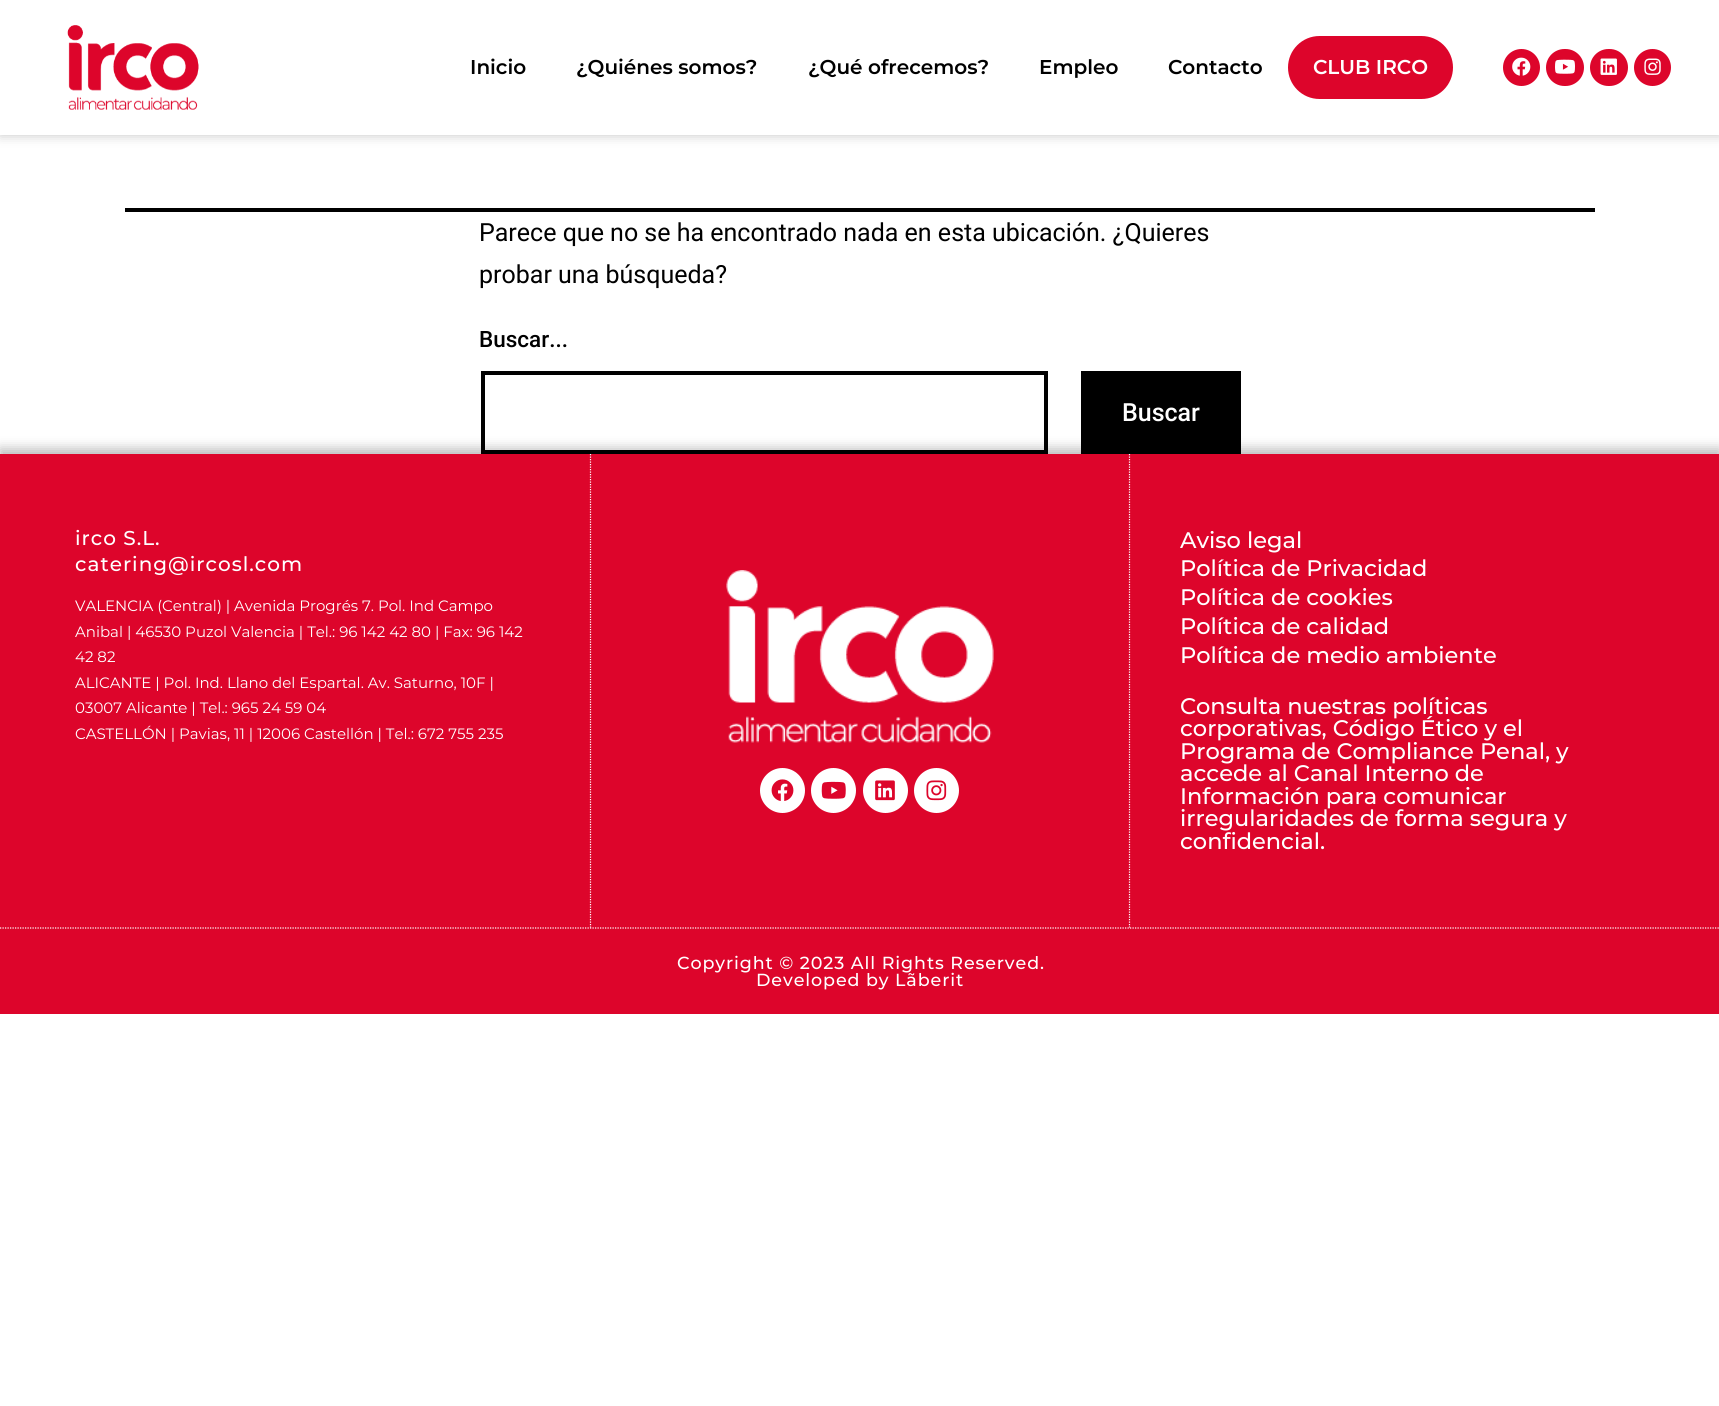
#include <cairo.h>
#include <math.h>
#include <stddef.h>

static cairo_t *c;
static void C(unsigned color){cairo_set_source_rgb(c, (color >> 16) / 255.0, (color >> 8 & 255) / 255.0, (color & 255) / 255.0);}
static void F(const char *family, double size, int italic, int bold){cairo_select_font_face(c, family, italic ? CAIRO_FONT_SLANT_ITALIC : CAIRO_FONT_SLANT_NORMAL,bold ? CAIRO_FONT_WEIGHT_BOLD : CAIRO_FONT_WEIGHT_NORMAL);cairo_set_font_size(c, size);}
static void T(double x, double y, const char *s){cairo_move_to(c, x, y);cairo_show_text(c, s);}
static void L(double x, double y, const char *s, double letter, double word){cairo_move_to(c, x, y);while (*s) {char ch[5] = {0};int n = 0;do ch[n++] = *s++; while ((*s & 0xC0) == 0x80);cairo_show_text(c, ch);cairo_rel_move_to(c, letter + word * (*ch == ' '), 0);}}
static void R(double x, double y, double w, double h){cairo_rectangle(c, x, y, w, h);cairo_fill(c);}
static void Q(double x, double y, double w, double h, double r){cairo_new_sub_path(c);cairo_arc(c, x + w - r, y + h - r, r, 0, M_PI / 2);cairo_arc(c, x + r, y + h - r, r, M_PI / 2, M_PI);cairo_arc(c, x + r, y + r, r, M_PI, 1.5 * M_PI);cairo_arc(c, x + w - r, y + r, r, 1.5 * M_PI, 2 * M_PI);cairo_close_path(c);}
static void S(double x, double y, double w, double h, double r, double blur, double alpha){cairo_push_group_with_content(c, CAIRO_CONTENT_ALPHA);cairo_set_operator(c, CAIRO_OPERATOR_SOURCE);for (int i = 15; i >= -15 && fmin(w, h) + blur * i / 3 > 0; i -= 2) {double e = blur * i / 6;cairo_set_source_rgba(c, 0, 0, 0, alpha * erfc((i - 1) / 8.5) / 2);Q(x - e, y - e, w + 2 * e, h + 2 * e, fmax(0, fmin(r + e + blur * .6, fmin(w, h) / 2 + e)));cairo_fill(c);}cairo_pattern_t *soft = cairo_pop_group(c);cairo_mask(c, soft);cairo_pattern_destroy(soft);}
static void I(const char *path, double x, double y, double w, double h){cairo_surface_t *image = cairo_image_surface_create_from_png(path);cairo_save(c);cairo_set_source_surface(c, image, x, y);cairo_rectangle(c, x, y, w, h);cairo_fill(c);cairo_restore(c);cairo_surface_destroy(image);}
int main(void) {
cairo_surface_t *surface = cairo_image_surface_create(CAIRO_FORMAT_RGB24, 1719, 1406);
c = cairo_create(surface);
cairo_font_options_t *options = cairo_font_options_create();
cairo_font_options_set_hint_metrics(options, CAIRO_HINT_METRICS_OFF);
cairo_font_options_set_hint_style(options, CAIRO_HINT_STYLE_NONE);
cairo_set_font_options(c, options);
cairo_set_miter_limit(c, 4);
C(0xffffff);
cairo_paint(c);
C(0x000000);
S(0,0,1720,135,0,6,.23);
C(0xffffff);
R(0,0,1719,135);
I("1.png",67,25,132,85);
F("Montserrat SemiBold",20,0,0);
C(0x000000);
T(470,74,"Inicio");
T(576,74,"¿Quiénes somos?");
T(808,74,"¿Qué ofrecemos?");
T(1039,74,"Empleo");
T(1168,74,"Contacto");
C(0xdd052b);
Q(1288,36,165,63,31.5);
cairo_fill(c);
C(0xffffff);
T(1313,74,"CLUB IRCO");
C(0xdd052b);
cairo_new_path(c);
cairo_arc(c,1521.5,67.5,18.5,0,2 * M_PI);
cairo_fill(c);
I("2.png",1512,57,19,19);
Q(1546,49,38,37,18.5);
cairo_fill(c);
I("3.png",1555,59,20,15);
Q(1590,49,38,37,18.5);
cairo_fill(c);
I("4.png",1600,58,17,17);
cairo_arc(c,1652.5,67.5,18.5,0,2 * M_PI);
cairo_fill(c);
I("5.png",1644,58,17,17);
C(0x000000);
R(125,208,1470,4);
F("Roboto",25,0,0);
T(479,241,"Parece que no se ha encontrado nada en esta ubicación. ¿Quieres");
T(479,283,"probar una búsqueda?");
F("Roboto Medium",22.5,0,0);
T(479,347,"Buscar...");
cairo_rectangle(c,483,373,563,79);
cairo_set_line_width(c,4);
cairo_stroke(c);
R(1081,371,160,83);
F("Roboto Medium",25,0,0);
C(0xffffff);
T(1122,421,"Buscar");
C(0x000000);
S(0,449,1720,474,0,6,.28);
C(0xdd052b);
R(0,454,1719,560);
F("Montserrat Medium",20,0,0);
C(0xffffff);
L(75,545,"irco S.L.",1,0);
L(75,571,"catering@ircosl.com",1,0);
F("Montserrat",15,0,0);
T(75,611,"VALENCIA (Central) | Avenida Progrés 7. Pol. Ind Campo");
T(75,637,"Anibal | 46530 Puzol Valencia | Tel.: 96 142 42 80 | Fax: 96 142");
T(75,662,"42 82");
T(75,688,"ALICANTE | Pol. Ind. Llano del Espartal. Av. Saturno, 10F |");
T(75,713,"03007 Alicante | Tel.: 965 24 59 04");
T(75,739,"CASTELLÓN | Pavias, 11 | 12006 Castellón | Tel.: 672 755 235");
cairo_new_path(c);
cairo_move_to(c,1129.5,454);
cairo_line_to(c,1129.5,927.5);
cairo_set_line_width(c,1.2);
cairo_set_dash(c,(double[]){1.25,1.25},2,0);
cairo_stroke(c);
cairo_new_path(c);
cairo_move_to(c,590.5,454);
cairo_line_to(c,590.5,927.5);
cairo_stroke(c);
I("6.png",726,570,268,173);
cairo_arc(c,782.5,790.5,22.5,0,2 * M_PI);
cairo_fill(c);
I("7.png",771,779,23,22);
cairo_arc(c,833.5,790.5,22.5,0,2 * M_PI);
cairo_fill(c);
I("8.png",821,781,25,18);
cairo_arc(c,885.5,790.5,22.5,0,2 * M_PI);
cairo_fill(c);
I("9.png",875,780,20,21);
cairo_arc(c,936.5,790.5,22.5,0,2 * M_PI);
cairo_fill(c);
I("10.png",926,780,21,21);
F("Montserrat Medium",22.5,0,0);
T(1180,548,"Aviso legal");
T(1180,576,"Política de Privacidad");
T(1180,605,"Política de cookies");
T(1180,634,"Política de calidad");
T(1180,663,"Política de medio ambiente");
T(1180,714,"Consulta nuestras políticas");
T(1180,736,"corporativas, Código Ético y el");
T(1180,759,"Programa de Compliance Penal, y");
T(1180,781,"accede al Canal Interno de");
T(1180,804,"Información para comunicar");
T(1180,826,"irregularidades de forma segura y");
T(1180,849,"confidencial.");
cairo_new_path(c);
cairo_move_to(c,0,928);
cairo_line_to(c,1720,928);
cairo_stroke(c);
F("Montserrat Medium",17.5,0,0);
L(677,969,"Copyright © 2023 All Rights Reserved.",.9,0);
L(756,986,"Developed by Lãberit",.9,0);
cairo_surface_write_to_png(surface, "o.png");
cairo_font_options_destroy(options);
cairo_destroy(c);
cairo_surface_destroy(surface);
return 0;
}
